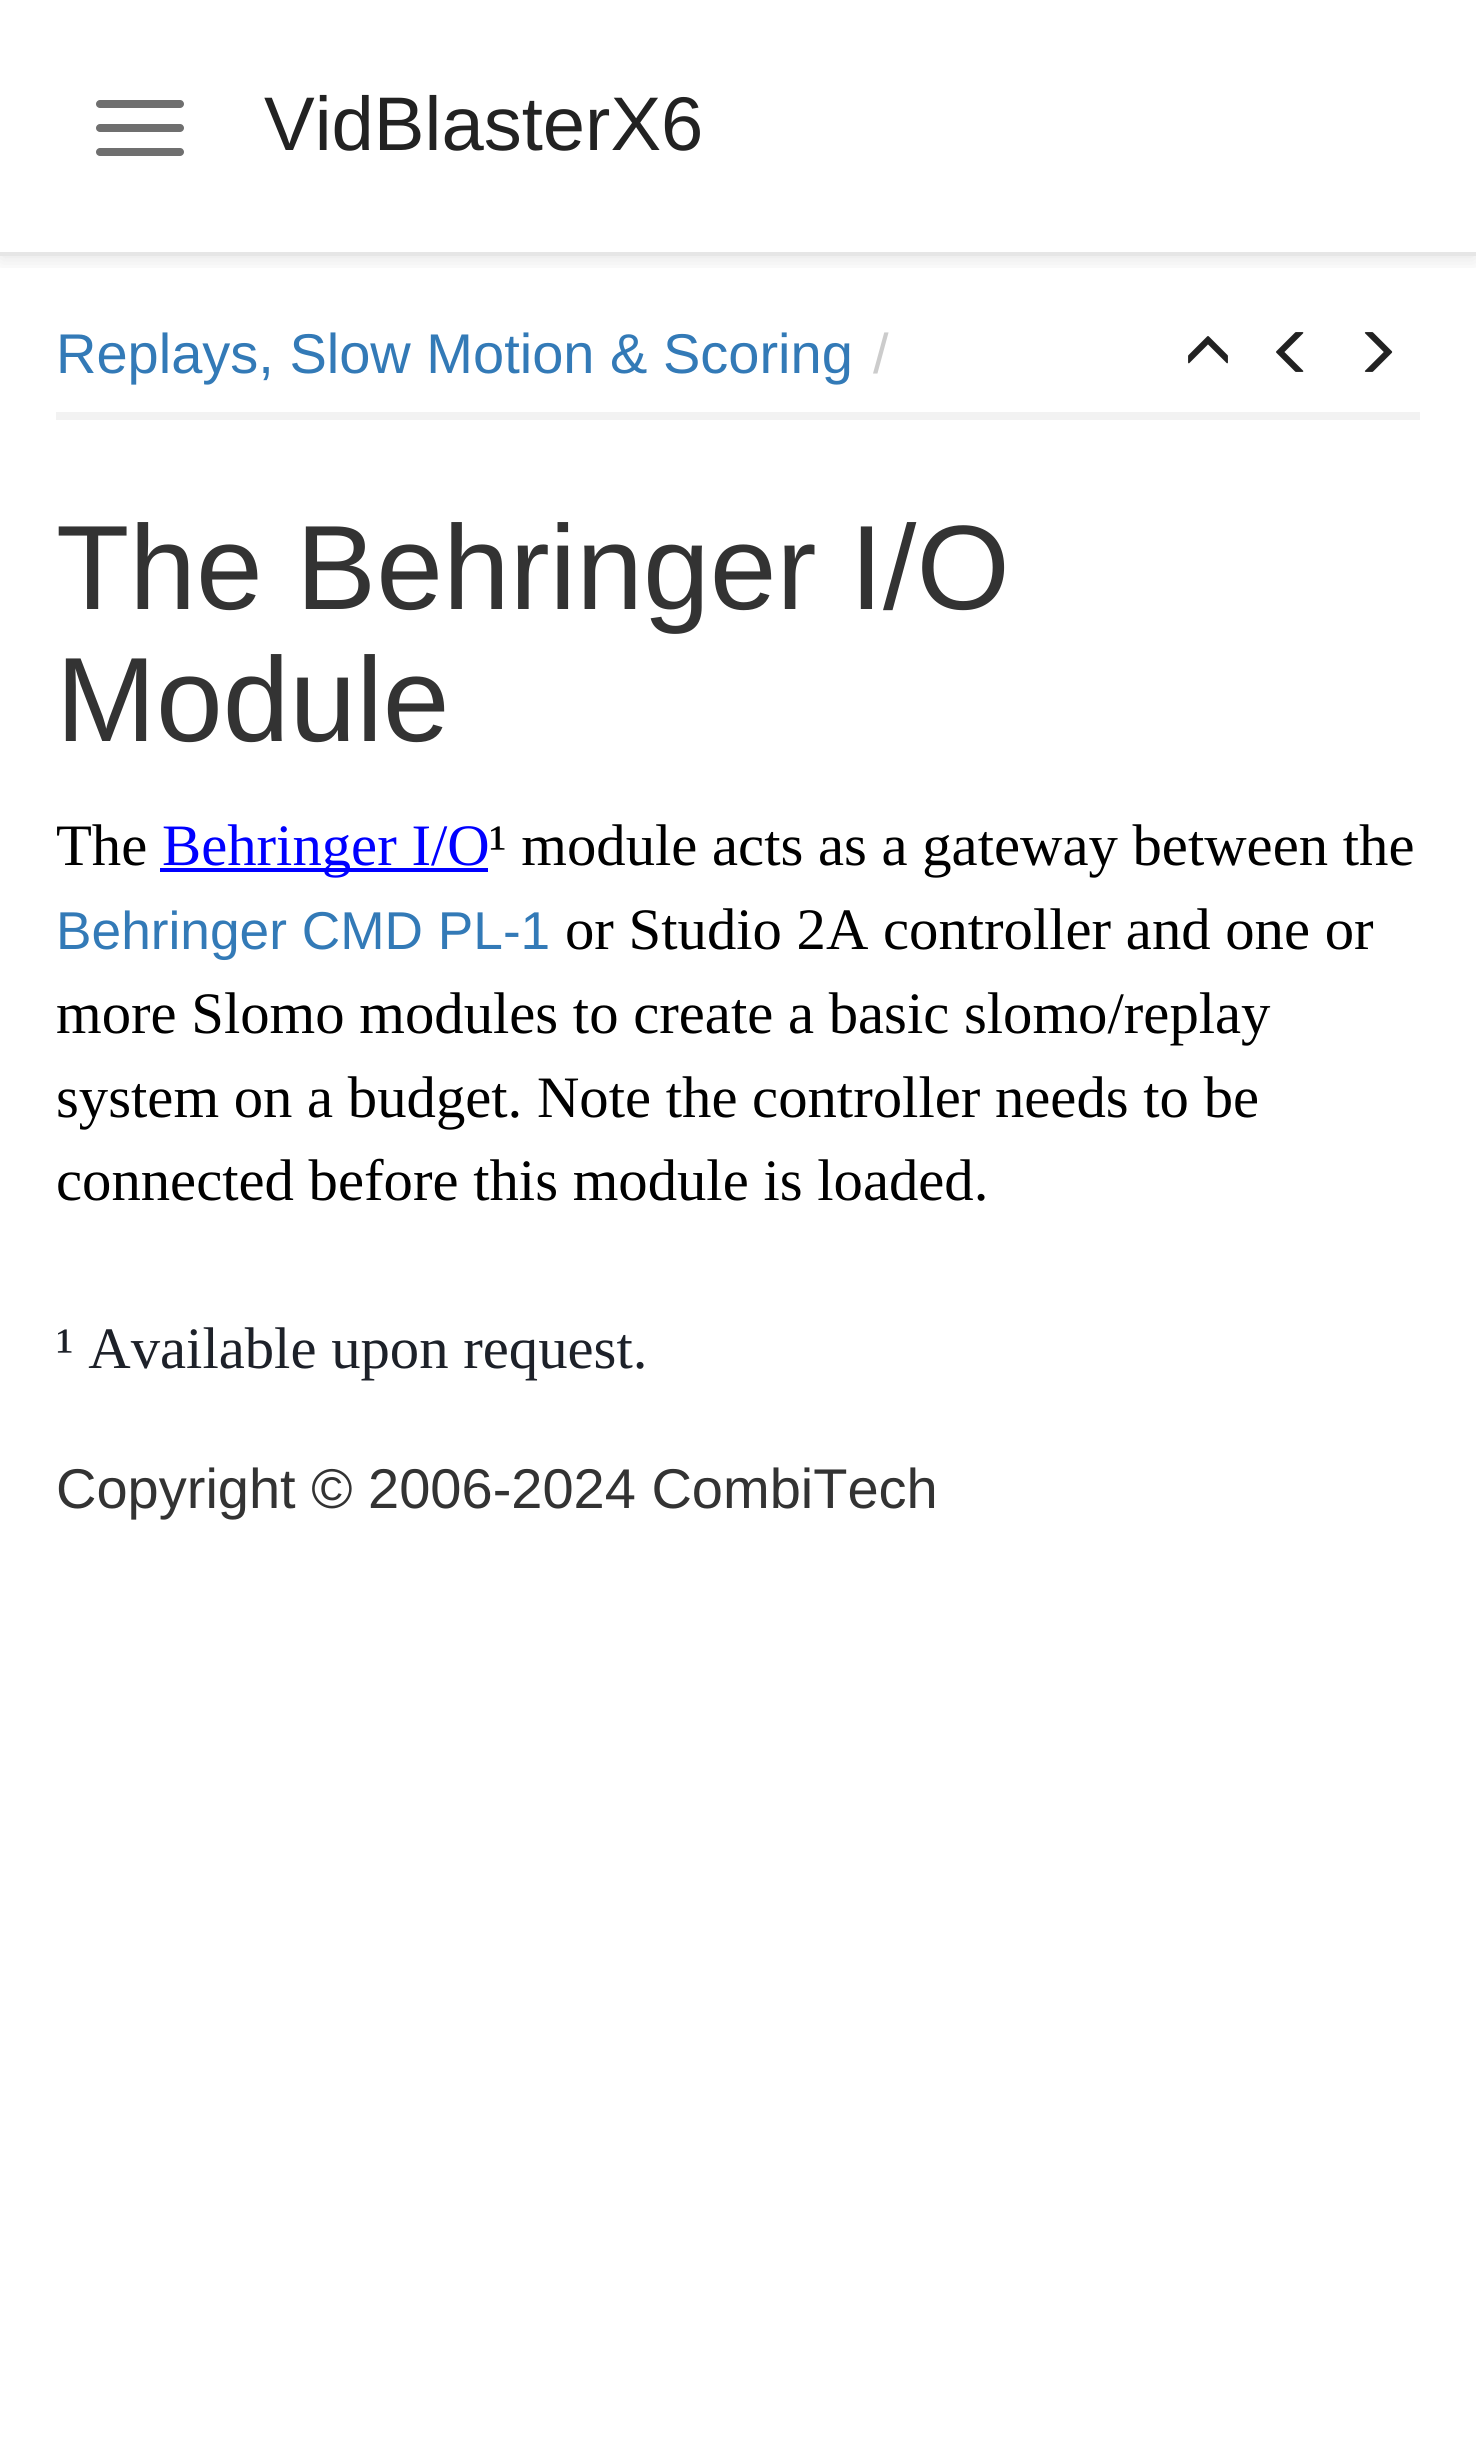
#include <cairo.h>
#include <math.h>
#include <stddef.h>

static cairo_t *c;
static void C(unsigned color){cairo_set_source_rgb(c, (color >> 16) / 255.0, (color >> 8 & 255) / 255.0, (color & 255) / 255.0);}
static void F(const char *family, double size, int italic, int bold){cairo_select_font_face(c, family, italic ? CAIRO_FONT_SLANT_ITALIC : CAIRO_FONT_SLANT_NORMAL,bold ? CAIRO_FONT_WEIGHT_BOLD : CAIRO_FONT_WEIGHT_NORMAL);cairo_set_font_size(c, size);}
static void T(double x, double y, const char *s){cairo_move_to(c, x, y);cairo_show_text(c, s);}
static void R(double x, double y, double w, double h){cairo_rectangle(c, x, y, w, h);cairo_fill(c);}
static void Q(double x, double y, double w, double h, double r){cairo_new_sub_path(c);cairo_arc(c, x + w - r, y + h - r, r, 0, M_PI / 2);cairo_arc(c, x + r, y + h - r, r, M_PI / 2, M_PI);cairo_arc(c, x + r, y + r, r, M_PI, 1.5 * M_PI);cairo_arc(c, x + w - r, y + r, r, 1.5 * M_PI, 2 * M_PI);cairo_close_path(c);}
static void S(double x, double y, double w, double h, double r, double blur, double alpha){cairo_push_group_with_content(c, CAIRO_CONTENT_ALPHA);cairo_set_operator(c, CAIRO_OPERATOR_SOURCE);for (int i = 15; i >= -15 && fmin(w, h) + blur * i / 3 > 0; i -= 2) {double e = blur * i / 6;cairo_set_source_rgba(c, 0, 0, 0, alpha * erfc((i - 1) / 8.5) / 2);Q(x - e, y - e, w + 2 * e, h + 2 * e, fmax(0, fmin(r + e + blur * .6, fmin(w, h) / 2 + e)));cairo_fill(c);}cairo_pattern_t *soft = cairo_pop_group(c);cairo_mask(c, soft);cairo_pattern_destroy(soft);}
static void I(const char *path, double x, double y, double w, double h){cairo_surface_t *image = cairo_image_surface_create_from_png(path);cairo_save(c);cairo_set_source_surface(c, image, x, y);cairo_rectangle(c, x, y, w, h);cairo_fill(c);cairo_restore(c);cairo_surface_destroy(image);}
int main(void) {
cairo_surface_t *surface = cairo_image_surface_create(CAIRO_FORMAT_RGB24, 1476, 2456);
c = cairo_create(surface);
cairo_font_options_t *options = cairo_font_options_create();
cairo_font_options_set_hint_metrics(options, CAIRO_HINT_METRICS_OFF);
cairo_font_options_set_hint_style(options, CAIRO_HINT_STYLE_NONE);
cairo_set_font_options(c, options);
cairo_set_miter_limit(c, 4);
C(0xffffff);
cairo_paint(c);
cairo_save(c);
cairo_rectangle(c,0,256,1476,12);
cairo_clip(c);
C(0x000000);
S(0,4,1476,256,0,10,.1);
cairo_restore(c);
C(0xe6e6e6);
R(0,252,1476,4);
C(0x6f6f6f);
Q(96,100,88,8,4);
cairo_fill(c);
Q(96,124,88,8,4);
cairo_fill(c);
Q(96,148,88,8,4);
cairo_fill(c);
F("Liberation Sans",76,0,0);
C(0x222222);
T(264,150,"VidBlasterX6");
C(0xf2f2f2);
R(56,412,1364,8);
F("Liberation Sans",56,0,0);
C(0x337ab7);
T(56,373,"Replays, Slow Motion & Scoring");
C(0xcccccc);
T(873,373,"/");
I("1.png",1188,336,40,28);
I("2.png",1276,332,28,40);
I("3.png",1364,332,29,40);
F("Liberation Sans",120,0,0);
C(0x333333);
T(56,609,"The Behringer I/O");
T(56,741,"Module");
F("Liberation Serif",58.7,0,0);
C(0x000000);
T(56,865,"The");
C(0x0000ff);
R(160,868,328,4);
T(162,865,"Behringer I/O");
C(0x000000);
T(489,865,"¹ module acts as a gateway between the");
F("Liberation Sans",53.25,0,0);
C(0x337ab7);
T(56,949,"Behringer CMD PL-1");
F("Liberation Serif",58.7,0,0);
C(0x000000);
T(565,949,"or Studio 2A controller and one or");
T(56,1033,"more Slomo modules to create a basic slomo/replay");
T(56,1117,"system on a budget. Note the controller needs to be");
T(56,1200,"connected before this module is loaded.");
C(0x1d2129);
T(56,1368,"¹ Available upon request.");
F("Liberation Sans",56,0,0);
C(0x333333);
T(56,1508,"Copyright © 2006-2024 CombiTech");
cairo_surface_write_to_png(surface, "o.png");
cairo_font_options_destroy(options);
cairo_destroy(c);
cairo_surface_destroy(surface);
return 0;
}
